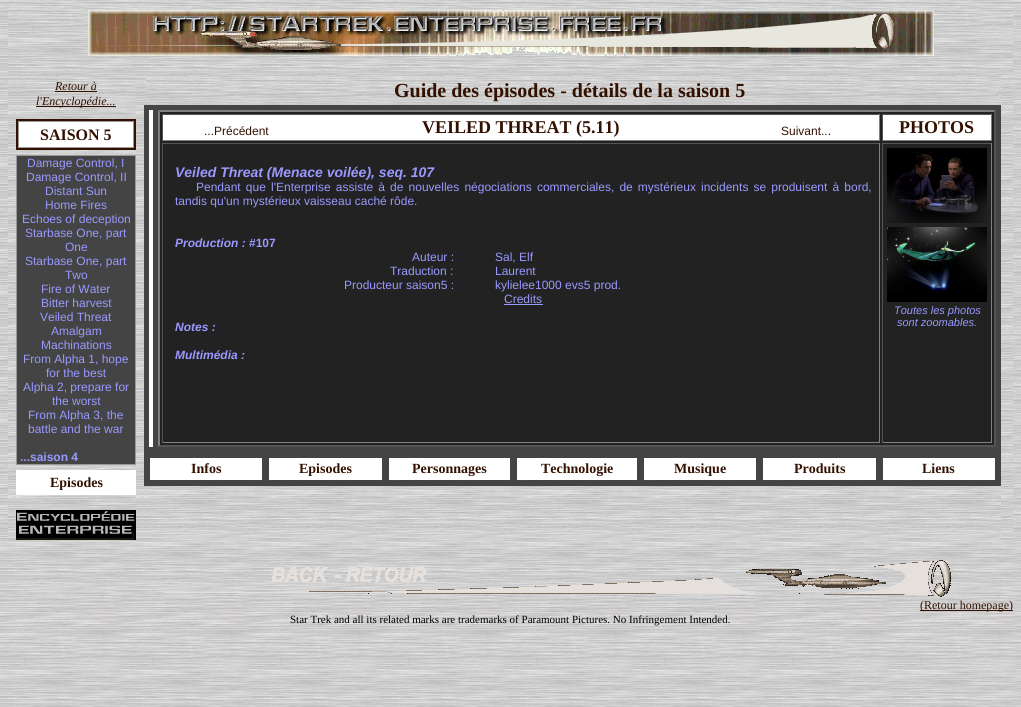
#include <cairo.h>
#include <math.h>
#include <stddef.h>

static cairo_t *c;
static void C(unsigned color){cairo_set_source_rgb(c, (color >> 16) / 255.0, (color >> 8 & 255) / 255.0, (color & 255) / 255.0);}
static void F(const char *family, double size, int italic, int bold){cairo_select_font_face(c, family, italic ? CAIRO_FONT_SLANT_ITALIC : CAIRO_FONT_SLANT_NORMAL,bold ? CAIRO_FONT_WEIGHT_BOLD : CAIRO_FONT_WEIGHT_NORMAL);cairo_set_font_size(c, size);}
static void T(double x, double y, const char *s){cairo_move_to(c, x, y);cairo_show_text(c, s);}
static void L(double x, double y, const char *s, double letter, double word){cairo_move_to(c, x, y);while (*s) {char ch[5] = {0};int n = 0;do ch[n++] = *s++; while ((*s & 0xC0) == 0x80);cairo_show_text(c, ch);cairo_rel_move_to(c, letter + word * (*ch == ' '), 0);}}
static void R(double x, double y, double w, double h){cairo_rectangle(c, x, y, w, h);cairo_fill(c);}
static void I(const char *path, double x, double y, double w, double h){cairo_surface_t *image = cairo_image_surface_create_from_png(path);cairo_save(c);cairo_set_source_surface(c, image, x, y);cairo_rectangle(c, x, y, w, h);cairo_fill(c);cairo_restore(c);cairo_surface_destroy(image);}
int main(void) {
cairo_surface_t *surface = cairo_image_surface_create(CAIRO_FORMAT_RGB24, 1021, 707);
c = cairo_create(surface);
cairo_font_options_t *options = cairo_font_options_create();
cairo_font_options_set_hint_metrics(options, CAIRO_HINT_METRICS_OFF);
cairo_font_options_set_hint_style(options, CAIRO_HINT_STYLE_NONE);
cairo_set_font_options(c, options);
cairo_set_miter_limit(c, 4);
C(0xffffff);
cairo_paint(c);
I("1.png",0,0,1021,707);
I("2.png",8,8,1005,68);
I("3.png",88,10,846,46);
I("4.png",8,76,8,464);
I("5.png",16,76,120,434);
F("Liberation Serif",12,1,0);
C(0x331100);
T(55,90,"Retour à");
R(55,91,42,1);
R(36,106,80,1);
T(36,105,"l'Encyclopédie...");
R(16,119,120,31);
C(0x999999);
R(18,121,116,27);
C(0xffffff);
R(19,122,114,25);
F("Liberation Serif",16,0,1);
C(0x331100);
T(40,140,"SAISON 5");
C(0x999999);
R(16,155,120,310);
C(0x444444);
R(17,156,118,308);
F("Liberation Sans",12,0,0);
C(0x9999ff);
T(27,167,"Damage Control, I");
T(26,181,"Damage Control, II");
T(45,195,"Distant Sun");
T(45,209,"Home Fires");
T(22,223,"Echoes of deception");
T(25,237,"Starbase One, part");
T(65,251,"One");
T(25,265,"Starbase One, part");
T(65,279,"Two");
T(41,293,"Fire of Water");
T(41,307,"Bitter harvest");
T(40,321,"Veiled Threat");
T(51,335,"Amalgam");
T(41,349,"Machinations");
T(23,363,"From Alpha 1, hope");
T(46,377,"for the best");
T(23,391,"Alpha 2, prepare for");
T(52,405,"the worst");
T(28,419,"From Alpha 3, the");
T(28,433,"battle and the war");
F("Liberation Sans",12,0,1);
T(20,461,"...saison 4");
C(0xffffff);
R(16,470,120,25);
F("Liberation Serif",14,0,1);
C(0x331100);
T(50,487,"Episodes");
I("6.png",16,510,120,30);
I("4.png",136,76,8,464);
I("7.png",144,76,857,464);
I("8.png",146,78,853,25);
F("Liberation Serif",20,0,1);
T(394,97,"Guide des épisodes - détails de la saison 5");
C(0x444444);
R(144,105,857,381);
C(0xffffff);
R(149,110,4,337);
C(0x222222);
R(158,110,838,337);
C(0x808080);
cairo_new_path(c);
cairo_move_to(c,158,110);
cairo_line_to(c,996,110);
cairo_line_to(c,994,112);
cairo_line_to(c,160,112);
cairo_close_path(c);
cairo_fill(c);
C(0x555555);
cairo_new_path(c);
cairo_move_to(c,996,110);
cairo_line_to(c,996,447);
cairo_line_to(c,994,445);
cairo_line_to(c,994,112);
cairo_close_path(c);
cairo_fill(c);
cairo_new_path(c);
cairo_move_to(c,996,447);
cairo_line_to(c,158,447);
cairo_line_to(c,160,445);
cairo_line_to(c,994,445);
cairo_close_path(c);
cairo_fill(c);
C(0x808080);
cairo_new_path(c);
cairo_move_to(c,158,447);
cairo_line_to(c,158,110);
cairo_line_to(c,160,112);
cairo_line_to(c,160,445);
cairo_close_path(c);
cairo_fill(c);
C(0xffffff);
R(163,115,716,25);
C(0x555555);
R(162,114,718,1);
C(0x808080);
R(879,114,1,27);
R(162,140,718,1);
C(0x555555);
R(162,114,1,27);
F("Liberation Sans",12,0,0);
C(0x331100);
T(204,135,"...Précédent");
F("Liberation Serif",18,0,1);
T(422,133,"VEILED THREAT (5.11)");
F("Liberation Sans",12,0,0);
T(781,135,"Suivant...");
C(0xffffff);
R(883,115,108,25);
C(0x555555);
R(882,114,110,1);
C(0x808080);
R(991,114,1,27);
R(882,140,110,1);
C(0x555555);
R(882,114,1,27);
F("Liberation Serif",18,0,1);
C(0x331100);
T(899,133,"PHOTOS");
C(0x555555);
R(162,143,718,1);
C(0x808080);
R(879,143,1,300);
R(162,442,718,1);
C(0x555555);
R(162,143,1,300);
F("Liberation Sans",14,1,1);
C(0x9999ff);
T(175,177,"Veiled Threat (Menace voilée), seq. 107");
F("Liberation Sans",12,0,0);
L(196,191,"Pendant que l'Enterprise assiste à de nouvelles négociations commerciales, de mystérieux incidents se produisent à bord,",0,1.8);
T(175,205,"tandis qu'un mystérieux vaisseau caché rôde.");
F("Liberation Sans",12,1,1);
T(175,247,"Production :");
F("Liberation Sans",12,0,1);
T(249,247,"#107");
F("Liberation Sans",12,0,0);
T(412,261,"Auteur :");
T(495,261,"Sal, Elf");
T(390,275,"Traduction :");
T(495,275,"Laurent");
T(344,289,"Producteur saison5 :");
T(495,289,"kylielee1000 evs5 prod.");
T(504,303,"Credits");
R(504,304,39,1);
F("Liberation Sans",12,1,1);
T(175,331,"Notes :");
T(175,359,"Multimédia :");
C(0x555555);
R(882,143,110,1);
C(0x808080);
R(991,143,1,300);
R(882,442,110,1);
C(0x555555);
R(882,143,1,300);
I("9.png",887,148,100,75);
I("10.png",887,227,100,75);
F("Liberation Sans",11,1,0);
C(0x9999ff);
T(894,314,"Toutes les photos");
T(897,326,"sont zoomables.");
C(0xffffff);
R(150,458,112,22);
F("Liberation Serif",14,0,1);
C(0x331100);
T(191,473,"Infos");
C(0xffffff);
R(269,458,113,22);
C(0x331100);
T(299,473,"Episodes");
C(0xffffff);
R(389,458,121,22);
C(0x331100);
T(412,473,"Personnages");
C(0xffffff);
R(517,458,120,22);
C(0x331100);
T(541,473,"Technologie");
C(0xffffff);
R(644,458,112,22);
C(0x331100);
T(674,473,"Musique");
C(0xffffff);
R(763,458,113,22);
C(0x331100);
T(794,473,"Produits");
C(0xffffff);
R(883,458,112,22);
C(0x331100);
T(922,473,"Liens");
I("11.png",1001,76,12,464);
I("12.png",165,560,786,37);
R(920,610,93,1);
F("Liberation Serif",12,0,0);
T(920,609,"(Retour homepage)");
F("Liberation Serif",11,0,0);
C(0x000000);
T(290,623,"Star Trek and all its related marks are trademarks of Paramount Pictures. No Infringement Intended.");
cairo_surface_write_to_png(surface, "o.png");
cairo_font_options_destroy(options);
cairo_destroy(c);
cairo_surface_destroy(surface);
return 0;
}
